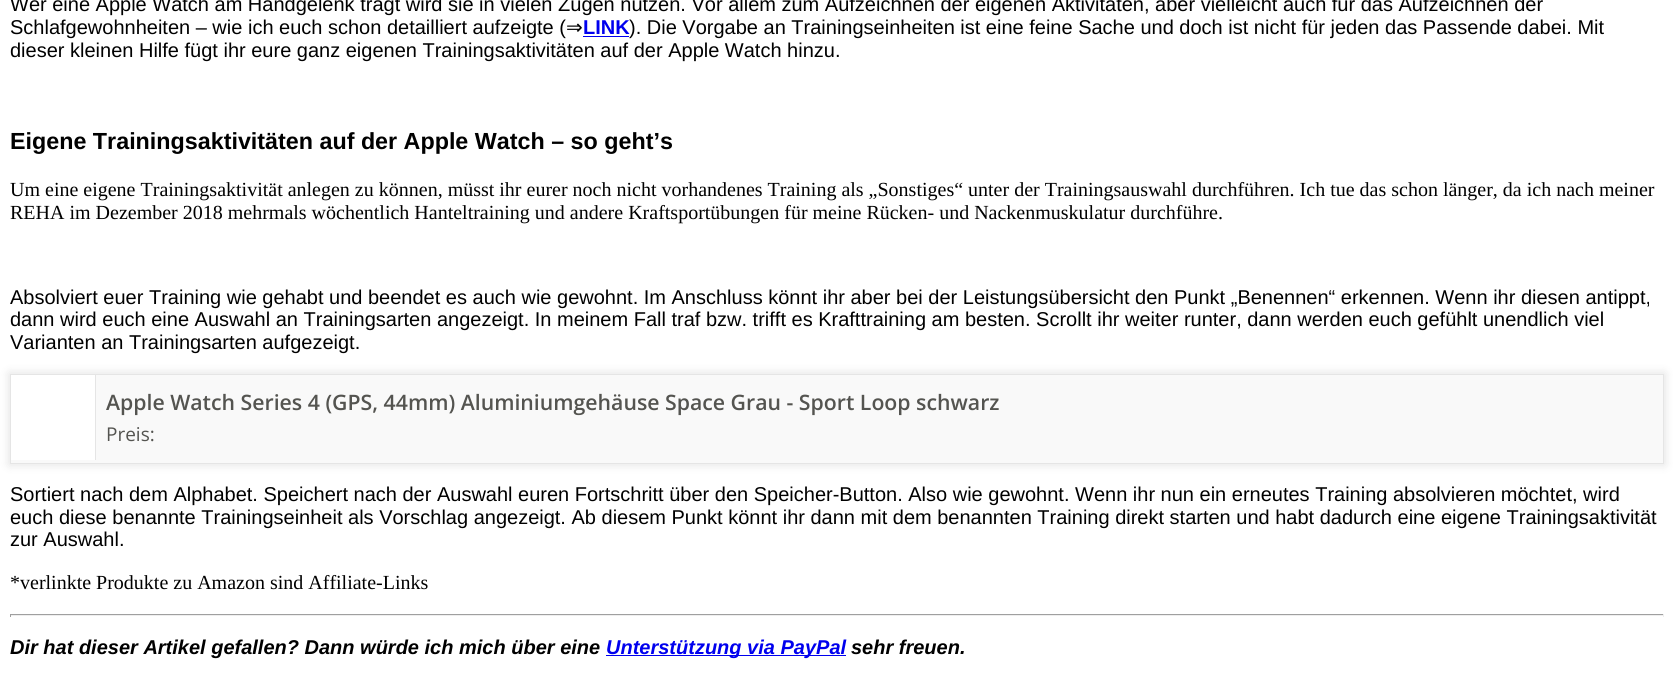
#include <cairo.h>
#include <math.h>
#include <stddef.h>

static cairo_t *c;
static void C(unsigned color){cairo_set_source_rgb(c, (color >> 16) / 255.0, (color >> 8 & 255) / 255.0, (color & 255) / 255.0);}
static void F(const char *family, double size, int italic, int bold){cairo_select_font_face(c, family, italic ? CAIRO_FONT_SLANT_ITALIC : CAIRO_FONT_SLANT_NORMAL,bold ? CAIRO_FONT_WEIGHT_BOLD : CAIRO_FONT_WEIGHT_NORMAL);cairo_set_font_size(c, size);}
static void T(double x, double y, const char *s){cairo_move_to(c, x, y);cairo_show_text(c, s);}
static void R(double x, double y, double w, double h){cairo_rectangle(c, x, y, w, h);cairo_fill(c);}
static void Q(double x, double y, double w, double h, double r){cairo_new_sub_path(c);cairo_arc(c, x + w - r, y + h - r, r, 0, M_PI / 2);cairo_arc(c, x + r, y + h - r, r, M_PI / 2, M_PI);cairo_arc(c, x + r, y + r, r, M_PI, 1.5 * M_PI);cairo_arc(c, x + w - r, y + r, r, 1.5 * M_PI, 2 * M_PI);cairo_close_path(c);}
static void S(double x, double y, double w, double h, double r, double blur, double alpha){cairo_push_group_with_content(c, CAIRO_CONTENT_ALPHA);cairo_set_operator(c, CAIRO_OPERATOR_SOURCE);for (int i = 15; i >= -15 && fmin(w, h) + blur * i / 3 > 0; i -= 2) {double e = blur * i / 6;cairo_set_source_rgba(c, 0, 0, 0, alpha * erfc((i - 1) / 8.5) / 2);Q(x - e, y - e, w + 2 * e, h + 2 * e, fmax(0, fmin(r + e + blur * .6, fmin(w, h) / 2 + e)));cairo_fill(c);}cairo_pattern_t *soft = cairo_pop_group(c);cairo_mask(c, soft);cairo_pattern_destroy(soft);}
int main(void) {
cairo_surface_t *surface = cairo_image_surface_create(CAIRO_FORMAT_RGB24, 1673, 680);
c = cairo_create(surface);
cairo_font_options_t *options = cairo_font_options_create();
cairo_font_options_set_hint_metrics(options, CAIRO_HINT_METRICS_OFF);
cairo_font_options_set_hint_style(options, CAIRO_HINT_STYLE_NONE);
cairo_set_font_options(c, options);
cairo_set_miter_limit(c, 4);
C(0xffffff);
cairo_paint(c);
F("Liberation Sans",20,0,0);
C(0x000000);
T(10,11,"Wer eine Apple Watch am Handgelenk trägt wird sie in vielen Zügen nutzen. Vor allem zum Aufzeichnen der eigenen Aktivitäten, aber vielleicht auch für das Aufzeichnen der");
T(10,34,"Schlafgewohnheiten – wie ich euch schon detailliert aufzeigte (");
F("DejaVu Sans",20,0,0);
T(566,34,"⇒");
F("Liberation Sans",20,0,1);
C(0x0000ee);
T(583,34,"LINK");
F("Liberation Sans",20,0,0);
C(0x000000);
T(629,34,"). Die Vorgabe an Trainingseinheiten ist eine feine Sache und doch ist nicht für jeden das Passende dabei. Mit");
C(0x0000ee);
R(583,36,46,1);
C(0x000000);
T(10,57,"dieser kleinen Hilfe fügt ihr eure ganz eigenen Trainingsaktivitäten auf der Apple Watch hinzu.");
F("Liberation Sans",23.3,0,1);
T(10,149,"Eigene Trainingsaktivitäten auf der Apple Watch – so geht’s");
F("Liberation Serif",20,0,0);
T(10,196,"Um eine eigene Trainingsaktivität anlegen zu können, müsst ihr eurer noch nicht vorhandenes Training als „Sonstiges“ unter der Trainingsauswahl durchführen. Ich tue das schon länger, da ich nach meiner");
T(10,219,"REHA im Dezember 2018 mehrmals wöchentlich Hanteltraining und andere Kraftsportübungen für meine Rücken- und Nackenmuskulatur durchführe.");
F("Liberation Sans",20,0,0);
T(10,304,"Absolviert euer Training wie gehabt und beendet es auch wie gewohnt. Im Anschluss könnt ihr aber bei der Leistungsübersicht den Punkt „Benennen“ erkennen. Wenn ihr diesen antippt,");
T(10,326,"dann wird euch eine Auswahl an Trainingsarten angezeigt. In meinem Fall traf bzw. trifft es Krafttraining am besten. Scrollt ihr weiter runter, dann werden euch gefühlt unendlich viel");
T(10,349,"Varianten an Trainingsarten aufgezeigt.");
C(0x000000);
S(9,373,1656,92,0,5,.11);
C(0xf9f9f9);
cairo_rectangle(c,10.5,374.5,1653,89);
cairo_fill_preserve(c);
C(0xe5e5e5);
cairo_set_line_width(c,1);
cairo_stroke(c);
C(0xffffff);
R(11,375,84,85);
C(0xe5e5e5);
R(95,375,1,85);
F("Open Sans SemiBold",21.25,0,0);
C(0x545450);
T(106,410,"Apple Watch Series 4 (GPS, 44mm) Aluminiumgehäuse Space Grau - Sport Loop schwarz");
F("Open Sans",19,0,0);
T(106,441,"Preis:");
F("Liberation Sans",20,0,0);
C(0x000000);
T(10,501,"Sortiert nach dem Alphabet. Speichert nach der Auswahl euren Fortschritt über den Speicher-Button. Also wie gewohnt. Wenn ihr nun ein erneutes Training absolvieren möchtet, wird");
T(10,524,"euch diese benannte Trainingseinheit als Vorschlag angezeigt. Ab diesem Punkt könnt ihr dann mit dem benannten Training direkt starten und habt dadurch eine eigene Trainingsaktivität");
T(10,546,"zur Auswahl.");
F("Liberation Serif",20,0,0);
T(10,589,"*verlinkte Produkte zu Amazon sind Affiliate-Links");
C(0x9f9f9f);
R(10,614,1654,1);
C(0xeeeeee);
R(1663,614,1,3);
R(10,615,1654,1);
C(0x9f9f9f);
R(10,614,1,3);
F("Liberation Sans",20,1,1);
C(0x000000);
T(10,654,"Dir hat dieser Artikel gefallen? Dann würde ich mich über eine");
C(0x0000ee);
R(606,655,240,1);
T(606,654,"Unterstützung via PayPal");
C(0x000000);
T(851,654,"sehr freuen.");
cairo_surface_write_to_png(surface, "o.png");
cairo_font_options_destroy(options);
cairo_destroy(c);
cairo_surface_destroy(surface);
return 0;
}
